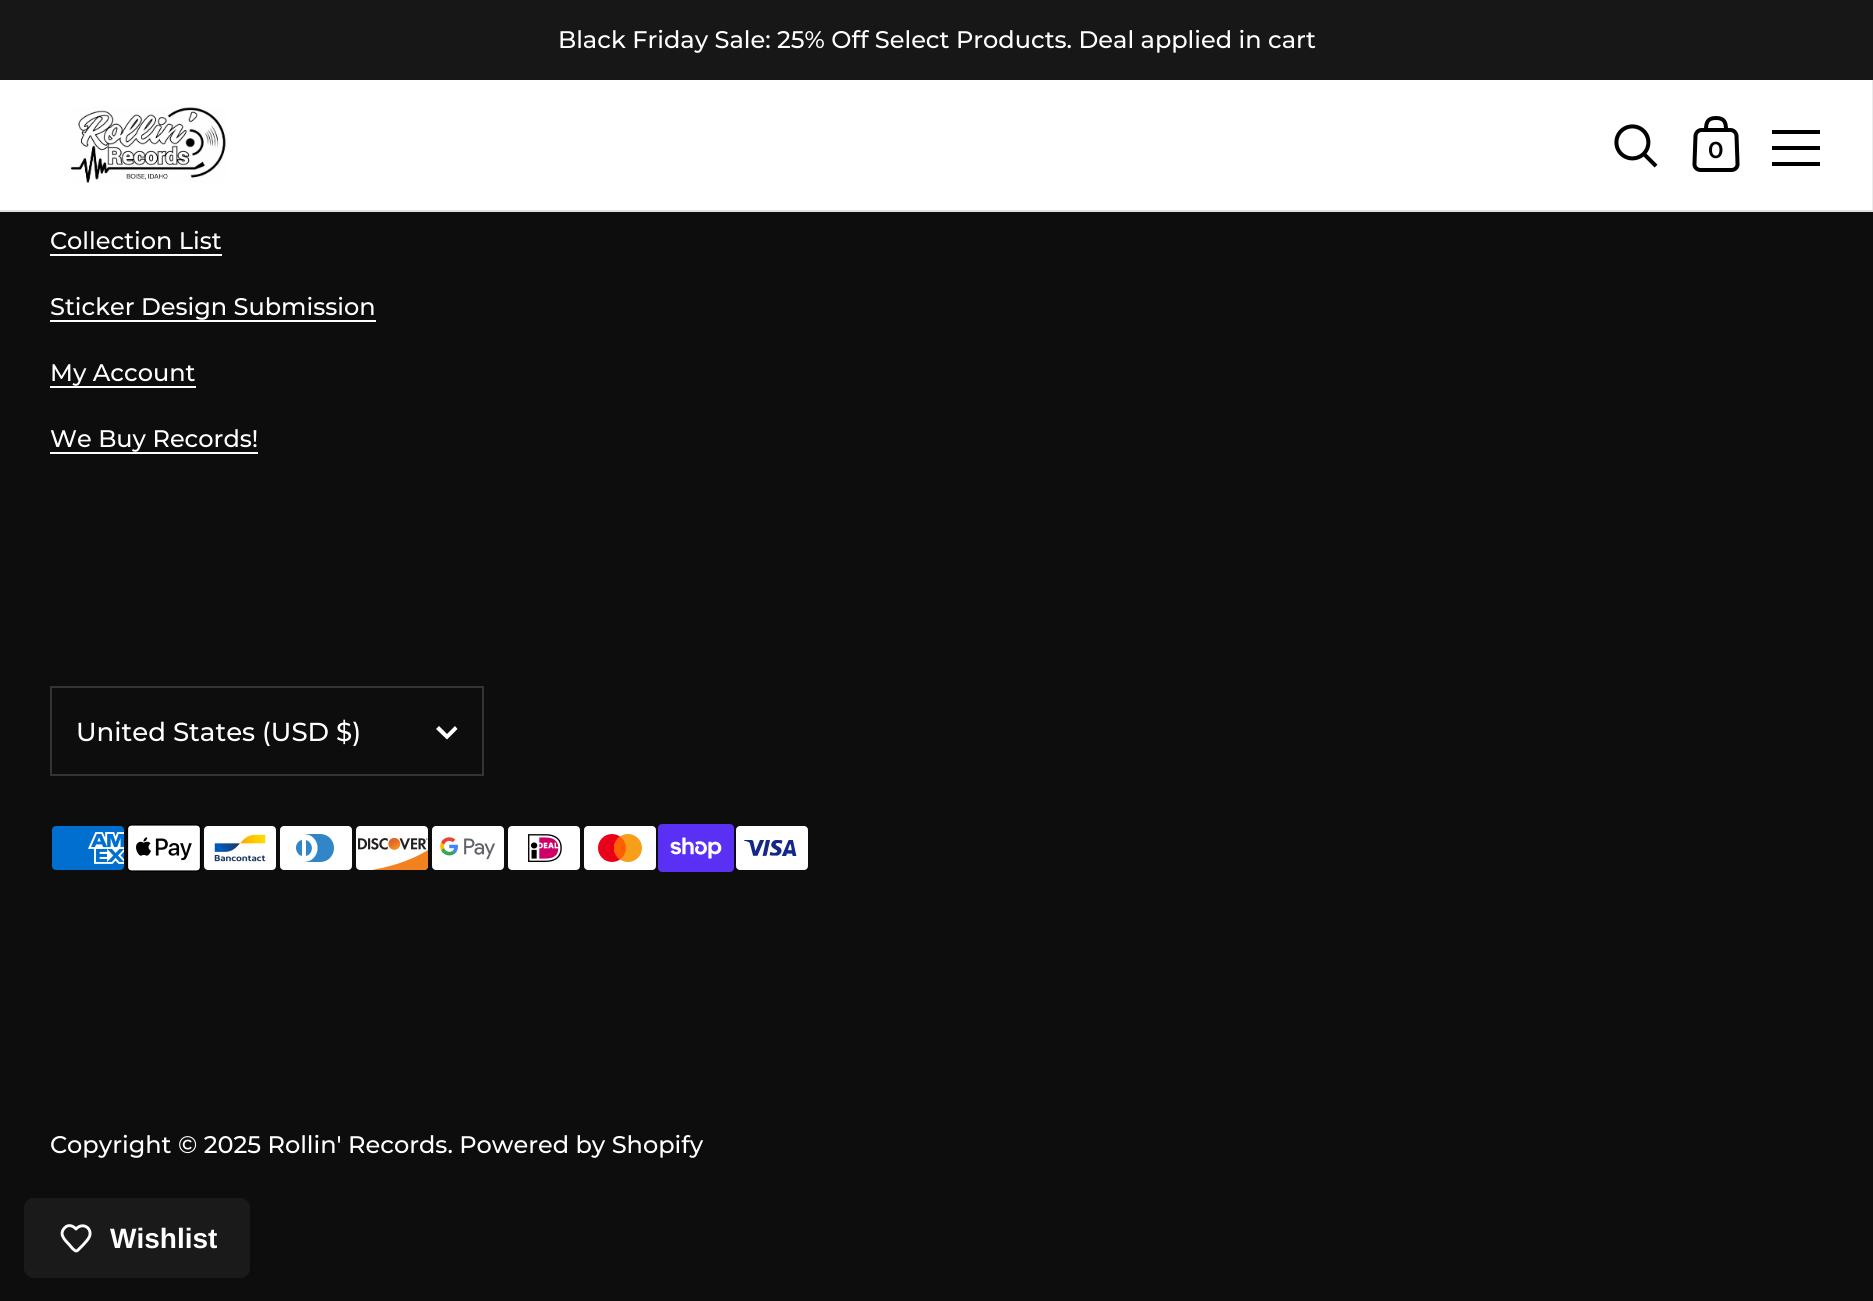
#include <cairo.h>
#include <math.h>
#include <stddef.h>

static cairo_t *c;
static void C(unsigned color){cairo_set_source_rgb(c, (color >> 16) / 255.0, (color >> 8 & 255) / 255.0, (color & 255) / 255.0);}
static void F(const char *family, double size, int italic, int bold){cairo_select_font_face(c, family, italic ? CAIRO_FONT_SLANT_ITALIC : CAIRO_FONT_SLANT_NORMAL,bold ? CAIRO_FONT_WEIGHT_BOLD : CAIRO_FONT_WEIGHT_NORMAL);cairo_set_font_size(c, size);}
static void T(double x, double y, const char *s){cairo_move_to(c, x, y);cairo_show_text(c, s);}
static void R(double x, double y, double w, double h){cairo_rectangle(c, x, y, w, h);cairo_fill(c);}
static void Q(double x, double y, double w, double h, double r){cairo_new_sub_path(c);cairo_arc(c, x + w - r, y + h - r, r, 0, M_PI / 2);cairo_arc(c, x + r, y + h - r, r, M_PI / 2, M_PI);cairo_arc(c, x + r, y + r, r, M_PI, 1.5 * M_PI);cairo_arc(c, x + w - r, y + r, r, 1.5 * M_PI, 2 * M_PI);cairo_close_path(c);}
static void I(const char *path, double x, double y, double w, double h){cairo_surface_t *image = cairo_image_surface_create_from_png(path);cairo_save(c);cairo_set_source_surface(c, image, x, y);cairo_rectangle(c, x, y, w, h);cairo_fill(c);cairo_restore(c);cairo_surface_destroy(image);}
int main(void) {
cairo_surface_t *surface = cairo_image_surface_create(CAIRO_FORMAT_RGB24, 1873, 1301);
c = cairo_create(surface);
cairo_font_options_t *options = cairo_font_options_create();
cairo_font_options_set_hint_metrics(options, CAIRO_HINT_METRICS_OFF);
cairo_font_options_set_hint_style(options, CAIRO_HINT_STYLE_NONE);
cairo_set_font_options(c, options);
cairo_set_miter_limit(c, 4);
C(0x0d0d0d);
cairo_paint(c);
C(0x171717);
R(0,0,1873,80);
F("Montserrat Medium",24,0,0);
C(0xffffff);
T(558,48,"Black Friday Sale: 25% Off Select Products. Deal applied in cart");
C(0xe0e0e0);
R(0,210,1873,2);
C(0xffffff);
R(0,80,1872,130);
C(0xebebeb);
R(1872,80,1,130);
I("1.png",70,107,156,76);
I("2.png",1614,124,44,44);
cairo_new_path(c);
cairo_move_to(c,1706,130);
cairo_line_to(c,1701.5,130);
cairo_curve_to(c,1698.5,130,1696,132.5,1695.5,135.5);
cairo_line_to(c,1694.5,163.5);
cairo_curve_to(c,1694,167,1697,170,1700.5,170);
cairo_line_to(c,1731.5,170);
cairo_curve_to(c,1735,170,1738,167,1737.5,163.5);
cairo_line_to(c,1736.5,135.5);
cairo_curve_to(c,1736,132.5,1733.5,130,1730.5,130);
cairo_line_to(c,1726,130);
cairo_move_to(c,1706,130);
cairo_curve_to(c,1706,122.5,1707.5,118,1716,118);
cairo_curve_to(c,1724.5,118,1726,122.5,1726,130);
cairo_move_to(c,1706,130);
cairo_line_to(c,1726,130);
C(0x000000);
cairo_set_line_width(c,4);
cairo_stroke(c);
F("Montserrat SemiBold",23,0,0);
T(1708,158,"0");
R(1772,130,48,4);
R(1772,146,48,4);
R(1772,162,48,4);
F("Montserrat Medium",24,0,0);
C(0xffffff);
T(50,249,"Collection List");
R(50,254,172,2);
T(50,315,"Sticker Design Submission");
R(50,320,326,2);
T(50,381,"My Account");
R(50,386,146,2);
T(50,447,"We Buy Records!");
R(50,452,208,2);
cairo_set_fill_rule(c,CAIRO_FILL_RULE_EVEN_ODD);
cairo_new_path(c);
cairo_move_to(c,449.5,737);
cairo_line_to(c,457.5,729);
cairo_line_to(c,455,726);
cairo_line_to(c,447,734);
cairo_line_to(c,439,726);
cairo_line_to(c,436,729);
cairo_line_to(c,447,739.5);
cairo_close_path(c);
cairo_fill(c);
cairo_rectangle(c,51,687,432,88);
C(0x343434);
cairo_set_line_width(c,2);
cairo_stroke(c);
F("Montserrat Medium",26,0,0);
C(0xffffff);
T(76,741,"United States (USD $)");
I("3.png",52,826,72,44);
I("4.png",126,824,76,48);
I("5.png",204,826,72,44);
I("6.png",280,826,72,44);
I("7.png",356,826,73,44);
I("8.png",432,826,72,44);
I("9.png",508,826,72,44);
I("10.png",584,826,72,44);
I("11.png",658,824,76,48);
I("12.png",736,826,72,44);
F("Montserrat Medium",24,0,0);
T(50,1153,"Copyright © 2025 Rollin' Records. Powered by Shopify");
C(0x1a1a1a);
Q(24,1198,226,80,10);
cairo_fill(c);
cairo_new_path(c);
cairo_move_to(c,64.5,1228);
cairo_curve_to(c,68,1224,73,1225.5,76,1229);
cairo_curve_to(c,83,1221.5,92.5,1228.5,89.5,1236.5);
cairo_curve_to(c,88,1240,85,1242.5,83,1245);
cairo_line_to(c,77.5,1250.5);
cairo_curve_to(c,75.5,1252,74,1249.5,72.5,1248.5);
cairo_line_to(c,69.5,1245);
cairo_curve_to(c,65,1240,58.5,1234.5,64.5,1228);
cairo_close_path(c);
C(0xffffff);
cairo_set_line_width(c,2.9);
cairo_set_line_cap(c,CAIRO_LINE_CAP_ROUND);
cairo_set_line_join(c,CAIRO_LINE_JOIN_ROUND);
cairo_stroke(c);
F("Liberation Sans",28,0,1);
T(110,1248,"Wishlist");
cairo_surface_write_to_png(surface, "o.png");
cairo_font_options_destroy(options);
cairo_destroy(c);
cairo_surface_destroy(surface);
return 0;
}
